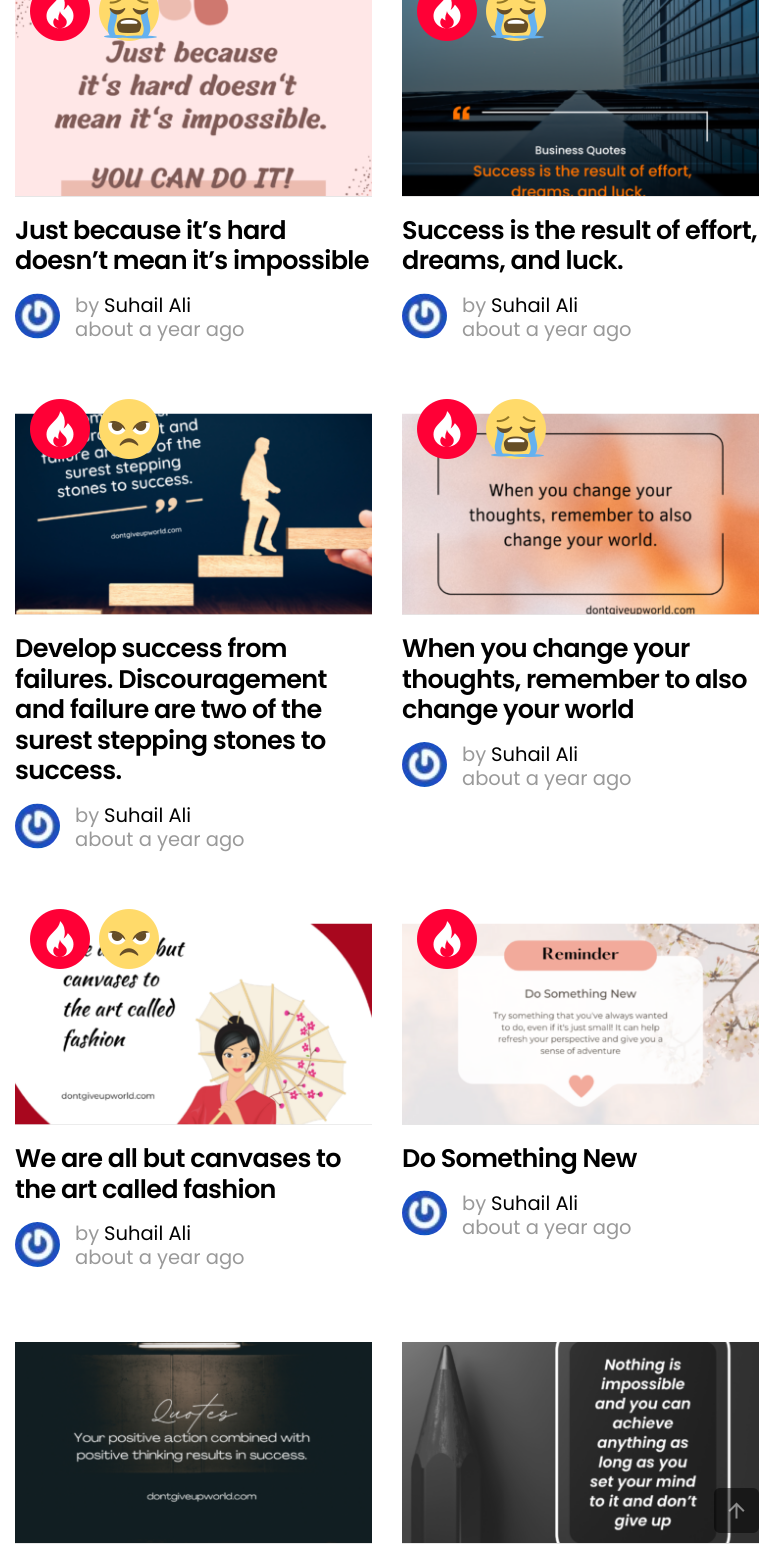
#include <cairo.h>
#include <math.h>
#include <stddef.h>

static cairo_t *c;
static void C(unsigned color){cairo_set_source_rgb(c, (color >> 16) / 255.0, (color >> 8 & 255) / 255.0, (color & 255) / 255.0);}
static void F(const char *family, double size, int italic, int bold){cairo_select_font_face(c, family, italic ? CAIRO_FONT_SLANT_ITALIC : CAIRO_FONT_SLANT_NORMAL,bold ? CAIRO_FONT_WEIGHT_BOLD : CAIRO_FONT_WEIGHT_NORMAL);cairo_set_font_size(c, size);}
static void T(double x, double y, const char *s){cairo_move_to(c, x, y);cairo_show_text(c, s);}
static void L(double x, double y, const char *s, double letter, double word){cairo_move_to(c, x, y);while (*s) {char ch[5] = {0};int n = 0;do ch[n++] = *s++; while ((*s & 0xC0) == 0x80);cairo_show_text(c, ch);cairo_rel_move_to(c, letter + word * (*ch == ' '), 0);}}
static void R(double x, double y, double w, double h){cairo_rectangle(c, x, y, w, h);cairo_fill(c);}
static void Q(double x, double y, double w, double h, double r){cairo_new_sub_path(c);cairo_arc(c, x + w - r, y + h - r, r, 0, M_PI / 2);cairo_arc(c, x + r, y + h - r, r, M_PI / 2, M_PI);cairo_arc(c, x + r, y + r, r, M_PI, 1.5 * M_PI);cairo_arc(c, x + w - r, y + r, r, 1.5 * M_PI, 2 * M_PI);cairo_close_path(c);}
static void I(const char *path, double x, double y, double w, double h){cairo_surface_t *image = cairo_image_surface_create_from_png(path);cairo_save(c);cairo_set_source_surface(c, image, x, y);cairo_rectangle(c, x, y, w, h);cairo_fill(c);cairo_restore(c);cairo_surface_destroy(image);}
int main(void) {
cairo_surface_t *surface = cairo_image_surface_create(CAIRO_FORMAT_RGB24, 773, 1547);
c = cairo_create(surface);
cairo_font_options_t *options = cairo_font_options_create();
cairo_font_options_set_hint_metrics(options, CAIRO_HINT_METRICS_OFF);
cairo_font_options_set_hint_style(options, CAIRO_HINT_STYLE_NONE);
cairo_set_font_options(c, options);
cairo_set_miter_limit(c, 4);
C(0xffffff);
cairo_paint(c);
I("3.png",15,0,357,196);
C(0xff0036);
cairo_arc(c,60,11,30,0,2 * M_PI);
cairo_fill(c);
I("1.png",46,0,28,29);
C(0xffda6a);
cairo_arc(c,129,11,30,0,2 * M_PI);
cairo_fill(c);
I("2.png",104,0,53,39);
C(0xe6e6e6);
R(15,196,357,1);
F("Poppins SemiBold",25.5,0,0);
C(0x000000);
L(15,239,"Just because it’s hard",-.65,0);
L(15,269,"doesn’t mean it’s impossible",-.65,0);
F("Poppins",19.5,0,0);
C(0x999999);
T(75,312,"by");
I("4.png",15,293,45,46);
C(0x000000);
T(104,312,"Suhail Ali");
C(0x999999);
T(75,336,"about a year ago");
I("6.png",402,0,357,196);
C(0xff0036);
cairo_arc(c,447,11,30,0,2 * M_PI);
cairo_fill(c);
I("1.png",433,0,28,29);
C(0xffda6a);
cairo_arc(c,516,11,30,0,2 * M_PI);
cairo_fill(c);
I("5.png",491,0,53,39);
C(0xe6e6e6);
R(402,196,357,1);
F("Poppins SemiBold",25.5,0,0);
C(0x000000);
L(402,239,"Success is the result of effort,",-.65,0);
L(402,269,"dreams, and luck.",-.65,0);
F("Poppins",19.5,0,0);
C(0x999999);
T(462,312,"by");
I("7.png",402,293,45,46);
C(0x000000);
T(491,312,"Suhail Ali");
C(0x999999);
T(462,336,"about a year ago");
C(0xe6e6e6);
R(15,614,357,1);
I("10.png",15,413,357,202);
C(0xff0036);
cairo_arc(c,60,429,30,0,2 * M_PI);
cairo_fill(c);
I("8.png",46,411,28,36);
C(0xffda6a);
cairo_arc(c,129,429,30,0,2 * M_PI);
cairo_fill(c);
I("9.png",108,420,42,26);
F("Poppins SemiBold",25.5,0,0);
C(0x000000);
L(15,657,"Develop success from",-.65,0);
L(15,688,"failures. Discouragement",-.65,0);
L(15,718,"and failure are two of the",-.65,0);
L(15,749,"surest stepping stones to",-.65,0);
L(15,779,"success.",-.65,0);
F("Poppins",19.5,0,0);
C(0x999999);
T(75,822,"by");
I("4.png",15,803,45,46);
C(0x000000);
T(104,822,"Suhail Ali");
C(0x999999);
T(75,846,"about a year ago");
C(0xe6e6e6);
R(402,614,357,1);
I("12.png",402,413,357,202);
C(0xff0036);
cairo_arc(c,447,429,30,0,2 * M_PI);
cairo_fill(c);
I("8.png",433,411,28,36);
C(0xffda6a);
cairo_arc(c,516,429,30,0,2 * M_PI);
cairo_fill(c);
I("11.png",491,416,53,41);
F("Poppins SemiBold",25.5,0,0);
C(0x000000);
L(402,657,"When you change your",-.65,0);
L(402,688,"thoughts, remember to also",-.65,0);
L(402,718,"change your world",-.65,0);
F("Poppins",19.5,0,0);
C(0x999999);
T(462,761,"by");
I("13.png",402,742,45,45);
C(0x000000);
T(491,761,"Suhail Ali");
C(0x999999);
T(462,785,"about a year ago");
C(0xe6e6e6);
R(15,1124,357,1);
I("14.png",15,923,357,202);
C(0xff0036);
cairo_arc(c,60,939,30,0,2 * M_PI);
cairo_fill(c);
I("8.png",46,921,28,36);
C(0xffda6a);
cairo_arc(c,129,939,30,0,2 * M_PI);
cairo_fill(c);
I("9.png",108,930,42,26);
F("Poppins SemiBold",25.5,0,0);
C(0x000000);
L(15,1167,"We are all but canvases to",-.65,0);
L(15,1198,"the art called fashion",-.65,0);
F("Poppins",19.5,0,0);
C(0x999999);
T(75,1240,"by");
I("15.png",15,1222,45,45);
C(0x000000);
T(104,1240,"Suhail Ali");
C(0x999999);
T(75,1264,"about a year ago");
C(0xe6e6e6);
R(402,1124,357,1);
I("16.png",402,923,357,202);
C(0xff0036);
cairo_arc(c,447,939,30,0,2 * M_PI);
cairo_fill(c);
I("8.png",433,921,28,36);
F("Poppins SemiBold",25.5,0,0);
C(0x000000);
L(402,1167,"Do Something New",-.65,0);
F("Poppins",19.5,0,0);
C(0x999999);
T(462,1210,"by");
I("7.png",402,1190,45,46);
C(0x000000);
T(491,1210,"Suhail Ali");
C(0x999999);
T(462,1234,"about a year ago");
C(0xe6e6e6);
R(15,1543,357,1);
I("17.png",15,1342,357,201);
R(402,1543,357,1);
I("18.png",402,1342,357,201);
cairo_set_source_rgba(c,0,0,0,0.5);
Q(714,1488,45,45,6);
cairo_fill(c);
I("19.png",728,1502,17,17);
cairo_surface_write_to_png(surface, "o.png");
cairo_font_options_destroy(options);
cairo_destroy(c);
cairo_surface_destroy(surface);
return 0;
}
